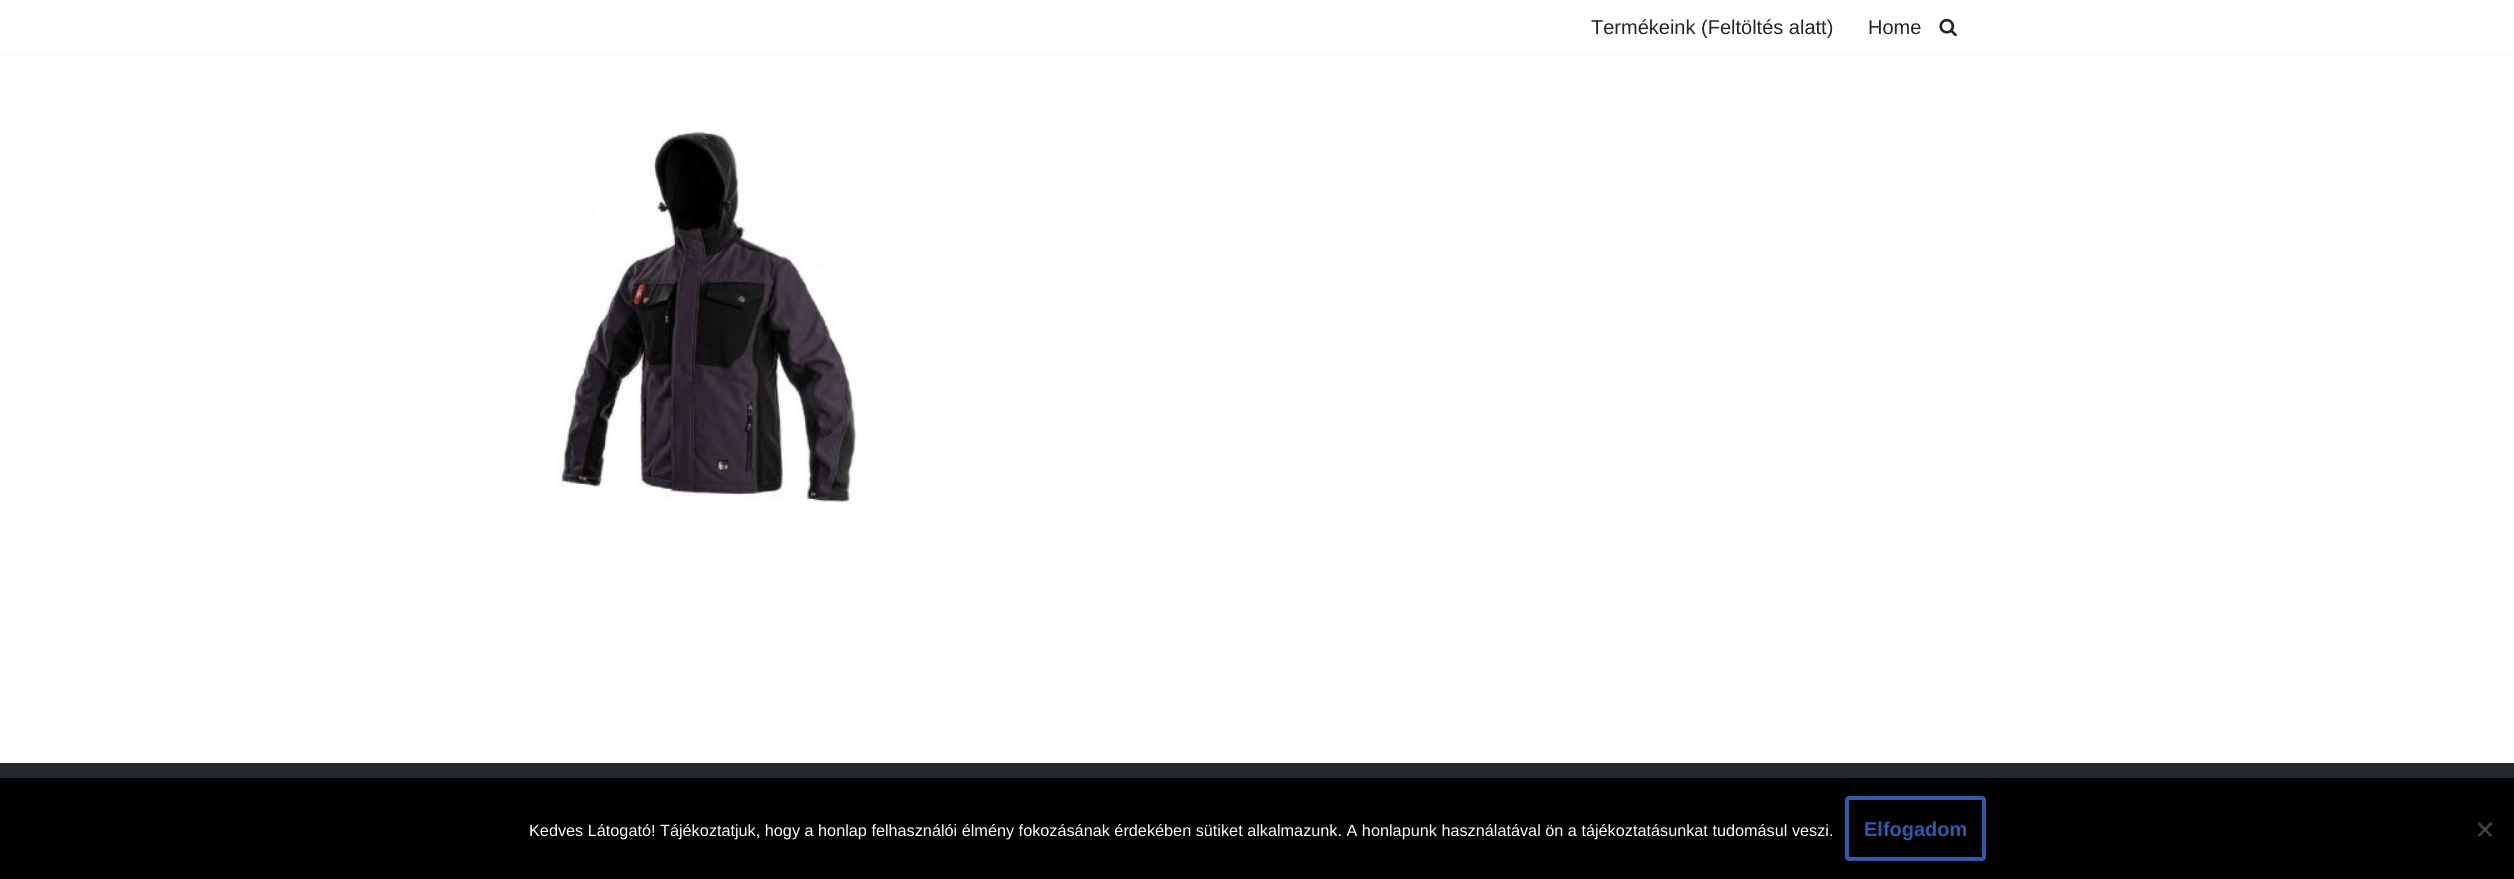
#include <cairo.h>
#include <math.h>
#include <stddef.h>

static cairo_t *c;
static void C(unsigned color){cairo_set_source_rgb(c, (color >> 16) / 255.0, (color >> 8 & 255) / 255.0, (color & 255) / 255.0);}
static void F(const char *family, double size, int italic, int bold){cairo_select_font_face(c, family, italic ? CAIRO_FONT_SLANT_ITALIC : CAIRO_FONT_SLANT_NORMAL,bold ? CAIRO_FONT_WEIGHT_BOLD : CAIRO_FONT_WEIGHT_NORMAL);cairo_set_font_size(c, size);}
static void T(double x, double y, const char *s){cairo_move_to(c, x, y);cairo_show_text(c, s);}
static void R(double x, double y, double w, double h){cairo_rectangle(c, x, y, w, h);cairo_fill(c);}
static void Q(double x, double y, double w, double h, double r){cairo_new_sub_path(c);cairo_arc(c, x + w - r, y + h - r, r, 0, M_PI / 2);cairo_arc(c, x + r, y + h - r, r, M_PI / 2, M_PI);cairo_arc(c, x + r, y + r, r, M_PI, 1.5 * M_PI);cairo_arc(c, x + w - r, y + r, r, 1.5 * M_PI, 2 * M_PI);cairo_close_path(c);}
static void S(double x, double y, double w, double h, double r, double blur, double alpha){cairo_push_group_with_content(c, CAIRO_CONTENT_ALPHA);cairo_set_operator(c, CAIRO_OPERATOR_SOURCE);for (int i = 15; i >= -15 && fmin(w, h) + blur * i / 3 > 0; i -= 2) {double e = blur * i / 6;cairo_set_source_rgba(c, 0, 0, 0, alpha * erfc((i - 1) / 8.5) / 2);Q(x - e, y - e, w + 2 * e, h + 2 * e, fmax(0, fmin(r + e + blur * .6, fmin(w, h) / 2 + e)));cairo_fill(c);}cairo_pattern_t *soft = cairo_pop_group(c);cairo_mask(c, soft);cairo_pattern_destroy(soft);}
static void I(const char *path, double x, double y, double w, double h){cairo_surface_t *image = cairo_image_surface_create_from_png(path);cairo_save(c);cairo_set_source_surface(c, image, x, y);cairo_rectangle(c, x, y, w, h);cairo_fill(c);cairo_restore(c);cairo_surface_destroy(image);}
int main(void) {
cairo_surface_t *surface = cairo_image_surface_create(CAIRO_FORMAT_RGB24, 2514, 879);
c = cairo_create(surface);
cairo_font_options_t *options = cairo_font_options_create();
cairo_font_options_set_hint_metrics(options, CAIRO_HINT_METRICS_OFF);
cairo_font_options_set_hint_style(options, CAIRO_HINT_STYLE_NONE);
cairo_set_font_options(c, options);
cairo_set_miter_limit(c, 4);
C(0xffffff);
cairo_paint(c);
C(0x000000);
S(0,-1,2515,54,0,2,.1);
C(0xffffff);
R(0,0,2514,54);
F("Liberation Sans",20,0,0);
C(0x272626);
T(1591,34,"Termékeink (Feltöltés alatt)");
T(1868,34,"Home");
I("1.png",1939,18,18,18);
I("2.png",555,129,302,374);
C(0x24292e);
R(0,763,2514,15);
C(0x000000);
R(0,778,2514,101);
F("Liberation Sans",16.25,0,0);
C(0xffffff);
T(529,836,"Kedves Látogató! Tájékoztatjuk, hogy a honlap felhasználói élmény fokozásának érdekében sütiket alkalmazunk. A honlapunk használatával ön a tájékoztatásunkat tudomásul veszi.");
Q(1847,798,137,61,2);
C(0x2f5aae);
cairo_set_line_width(c,4);
cairo_stroke(c);
F("Liberation Sans",20,0,1);
T(1864,836,"Elfogadom");
C(0x404040);
cairo_new_path(c);
cairo_move_to(c,2490.5,822);
cairo_line_to(c,2492.5,824);
cairo_line_to(c,2479.5,837);
cairo_line_to(c,2477.5,835.5);
cairo_close_path(c);
cairo_fill(c);
cairo_new_path(c);
cairo_move_to(c,2477.5,824);
cairo_line_to(c,2479.5,822);
cairo_line_to(c,2492.5,835.5);
cairo_line_to(c,2490.5,837);
cairo_close_path(c);
cairo_fill(c);
cairo_surface_write_to_png(surface, "o.png");
cairo_font_options_destroy(options);
cairo_destroy(c);
cairo_surface_destroy(surface);
return 0;
}
